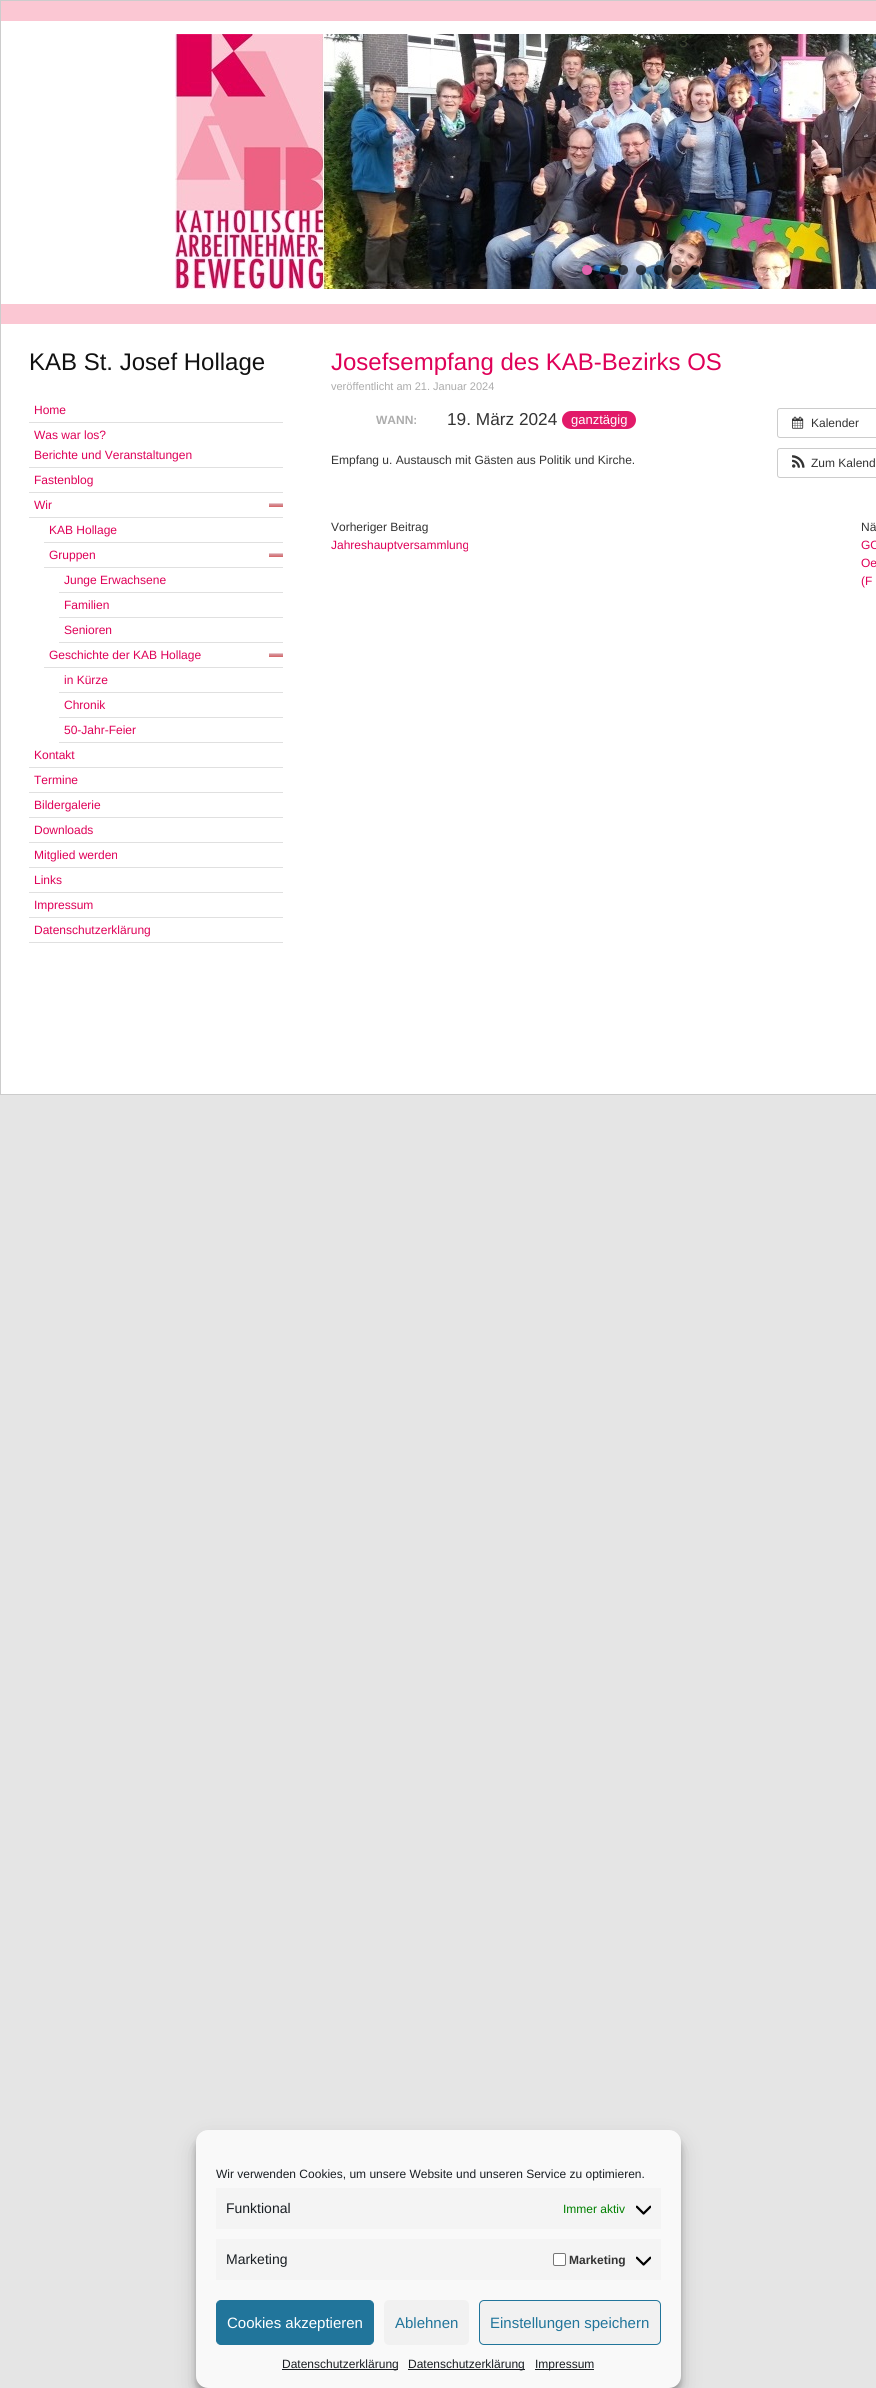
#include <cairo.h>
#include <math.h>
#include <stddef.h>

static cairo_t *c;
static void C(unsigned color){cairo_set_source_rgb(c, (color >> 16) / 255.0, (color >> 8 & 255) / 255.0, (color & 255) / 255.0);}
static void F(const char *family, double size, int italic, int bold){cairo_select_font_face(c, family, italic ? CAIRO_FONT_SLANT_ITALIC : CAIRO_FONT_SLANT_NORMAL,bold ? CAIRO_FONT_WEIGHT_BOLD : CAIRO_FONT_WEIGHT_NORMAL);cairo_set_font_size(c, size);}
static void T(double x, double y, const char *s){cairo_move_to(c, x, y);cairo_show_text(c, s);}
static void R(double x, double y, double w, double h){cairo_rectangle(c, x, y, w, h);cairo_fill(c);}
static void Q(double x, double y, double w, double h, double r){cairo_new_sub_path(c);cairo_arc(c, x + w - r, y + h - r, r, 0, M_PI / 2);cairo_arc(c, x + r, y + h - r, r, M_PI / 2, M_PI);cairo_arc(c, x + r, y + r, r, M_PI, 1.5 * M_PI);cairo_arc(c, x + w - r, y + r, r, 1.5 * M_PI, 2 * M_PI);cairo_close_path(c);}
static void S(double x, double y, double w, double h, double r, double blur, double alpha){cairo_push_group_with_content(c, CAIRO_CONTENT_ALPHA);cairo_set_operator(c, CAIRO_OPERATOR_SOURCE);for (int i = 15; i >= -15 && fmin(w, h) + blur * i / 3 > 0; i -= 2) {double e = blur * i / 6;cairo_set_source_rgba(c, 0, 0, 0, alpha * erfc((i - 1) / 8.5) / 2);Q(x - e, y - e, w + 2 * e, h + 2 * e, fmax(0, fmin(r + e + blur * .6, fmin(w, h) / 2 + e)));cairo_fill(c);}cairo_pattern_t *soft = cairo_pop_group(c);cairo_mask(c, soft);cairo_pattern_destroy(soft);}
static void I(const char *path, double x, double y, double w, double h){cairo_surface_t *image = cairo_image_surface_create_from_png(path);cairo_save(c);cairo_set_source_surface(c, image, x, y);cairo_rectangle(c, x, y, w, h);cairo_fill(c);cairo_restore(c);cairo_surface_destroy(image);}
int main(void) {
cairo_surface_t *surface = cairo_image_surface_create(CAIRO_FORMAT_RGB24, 876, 2388);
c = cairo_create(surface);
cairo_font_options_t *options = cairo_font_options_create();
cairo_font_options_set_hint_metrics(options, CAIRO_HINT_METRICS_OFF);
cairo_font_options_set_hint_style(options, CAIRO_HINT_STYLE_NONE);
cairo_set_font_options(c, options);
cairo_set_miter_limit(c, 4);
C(0xe5e5e5);
cairo_paint(c);
C(0xffffff);
R(1,21,875,1073);
cairo_rectangle(c,.5,.5,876,1094);
C(0xcccccc);
cairo_set_line_width(c,1);
cairo_stroke(c);
C(0xfbc7d3);
R(1,1,875,20);
I("1.png",175,34,701,255);
F("Liberation Sans",16,0,0);
C(0x393f2f);
T(679,47,"3");
C(0xe264af);
cairo_new_path(c);
cairo_arc(c,587,270,5,0,2 * M_PI);
cairo_fill(c);
cairo_set_source_rgba(c,0,0,0,0.67);
cairo_arc(c,605,270,5,0,2 * M_PI);
cairo_fill(c);
cairo_arc(c,623,270,5,0,2 * M_PI);
cairo_fill(c);
cairo_arc(c,641,270,5,0,2 * M_PI);
cairo_fill(c);
cairo_arc(c,659,270,5,0,2 * M_PI);
cairo_fill(c);
cairo_arc(c,677,270,5,0,2 * M_PI);
cairo_fill(c);
cairo_arc(c,695,270,5,0,2 * M_PI);
cairo_fill(c);
C(0xfbc7d3);
R(1,304,875,20);
F("Liberation Sans",24,0,0);
C(0x111111);
T(29,370,"KAB St. Josef Hollage");
C(0xe0e0e0);
R(29,422,254,1);
F("Arimo",12,0,0);
C(0xdf0158);
T(34,414,"Home");
C(0xe0e0e0);
R(29,467,254,1);
C(0xdf0158);
T(34,439,"Was war los?");
T(34,459,"Berichte und Veranstaltungen");
C(0xe0e0e0);
R(29,492,254,1);
C(0xdf0158);
T(34,484,"Fastenblog");
I("2.png",269,503,14,4);
C(0xe0e0e0);
R(29,517,254,1);
C(0xdf0158);
T(34,509,"Wir");
C(0xe0e0e0);
R(44,542,239,1);
C(0xdf0158);
T(49,534,"KAB Hollage");
I("2.png",269,553,14,4);
C(0xe0e0e0);
R(44,567,239,1);
C(0xdf0158);
T(49,559,"Gruppen");
C(0xe0e0e0);
R(59,592,224,1);
C(0xdf0158);
T(64,584,"Junge Erwachsene");
C(0xe0e0e0);
R(59,617,224,1);
C(0xdf0158);
T(64,609,"Familien");
C(0xe0e0e0);
R(59,642,224,1);
C(0xdf0158);
T(64,634,"Senioren");
I("2.png",269,653,14,4);
C(0xe0e0e0);
R(44,667,239,1);
C(0xdf0158);
T(49,659,"Geschichte der KAB Hollage");
C(0xe0e0e0);
R(59,692,224,1);
C(0xdf0158);
T(64,684,"in Kürze");
C(0xe0e0e0);
R(59,717,224,1);
C(0xdf0158);
T(64,709,"Chronik");
C(0xe0e0e0);
R(59,742,224,1);
C(0xdf0158);
T(64,734,"50-Jahr-Feier");
C(0xe0e0e0);
R(29,767,254,1);
C(0xdf0158);
T(34,759,"Kontakt");
C(0xe0e0e0);
R(29,792,254,1);
C(0xdf0158);
T(34,784,"Termine");
C(0xe0e0e0);
R(29,817,254,1);
C(0xdf0158);
T(34,809,"Bildergalerie");
C(0xe0e0e0);
R(29,842,254,1);
C(0xdf0158);
T(34,834,"Downloads");
C(0xe0e0e0);
R(29,867,254,1);
C(0xdf0158);
T(34,859,"Mitglied werden");
C(0xe0e0e0);
R(29,892,254,1);
C(0xdf0158);
T(34,884,"Links");
C(0xe0e0e0);
R(29,917,254,1);
C(0xdf0158);
T(34,909,"Impressum");
C(0xe0e0e0);
R(29,942,254,1);
C(0xdf0158);
T(34,934,"Datenschutzerklärung");
F("Liberation Sans",24,0,0);
T(331,370,"Josefsempfang des KAB-Bezirks OS");
F("Liberation Sans",11,0,0);
C(0xacacac);
T(331,390,"veröffentlicht am 21. Januar 2024");
F("Liberation Sans",12,0,1);
T(376,424,"WANN:");
F("Liberation Sans",17.25,0,0);
C(0x333333);
T(447,425,"19. März 2024");
C(0xe21a69);
Q(562,411,74,18,9);
cairo_fill(c);
F("Liberation Sans",13,0,0);
C(0xffffff);
T(571,424,"ganztägig");
Q(777.5,408.5,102,29,2.5);
C(0xcccccc);
cairo_stroke(c);
I("3.png",792,416,12,13);
F("Liberation Sans",12,0,0);
C(0x333333);
T(811,427,"Kalender");
Q(777.5,448.5,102,29,2.5);
C(0xcccccc);
cairo_stroke(c);
I("4.png",792,455,13,13);
C(0x333333);
T(811,467,"Zum Kalend");
T(331,464,"Empfang u. Austausch mit Gästen aus Politik und Kirche.");
T(331,531,"Vorheriger Beitrag");
C(0xdf0158);
T(331,549,"Jahreshauptversammlung");
C(0x333333);
T(861,531,"Nä");
C(0xdf0158);
T(861,549,"GO");
T(861,567,"Oe");
T(861,585,"(F");
C(0x000000);
S(196,2136,485,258,12,3,.23);
S(196,2140,485,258,12,10,.19);
C(0xf9f9f9);
Q(196,2130,485,258,12);
cairo_fill(c);
C(0x191e23);
T(216,2178,"Wir verwenden Cookies, um unsere Website und unseren Service zu optimieren.");
C(0xf4f4f4);
R(216,2188,445,41);
F("Liberation Sans",14,0,0);
C(0x191e23);
T(226,2213,"Funktional");
F("Liberation Sans",12,0,0);
C(0x008000);
T(563,2213,"Immer aktiv");
I("5.png",636,2205,15,10);
C(0xf4f4f4);
R(216,2239,445,41);
F("Liberation Sans",14,0,0);
C(0x191e23);
T(226,2264,"Marketing");
C(0xffffff);
Q(553.5,2253.5,12,12,1.5);
cairo_fill_preserve(c);
C(0x767676);
cairo_stroke(c);
F("Liberation Sans",12,0,1);
C(0x333333);
T(569,2264,"Marketing");
I("5.png",636,2256,15,10);
C(0x21759b);
Q(216.5,2300.5,157,44,4.5);
cairo_fill_preserve(c);
cairo_stroke(c);
F("Liberation Sans",15,0,0);
C(0xffffff);
T(227,2328,"Cookies akzeptieren");
C(0xf1f1f1);
Q(384,2300,85,45,5);
cairo_fill(c);
C(0x21759b);
T(395,2328,"Ablehnen");
C(0xf1f1f1);
Q(479.5,2300.5,181,44,4.5);
cairo_fill_preserve(c);
C(0x21759b);
cairo_stroke(c);
T(490,2328,"Einstellungen speichern");
C(0x191e23);
R(282,2369,116,1);
F("Liberation Sans",12,0,0);
T(282,2368,"Datenschutzerklärung");
R(408,2369,117,1);
T(408,2368,"Datenschutzerklärung");
R(535,2369,59,1);
T(535,2368,"Impressum");
cairo_surface_write_to_png(surface, "o.png");
cairo_font_options_destroy(options);
cairo_destroy(c);
cairo_surface_destroy(surface);
return 0;
}
